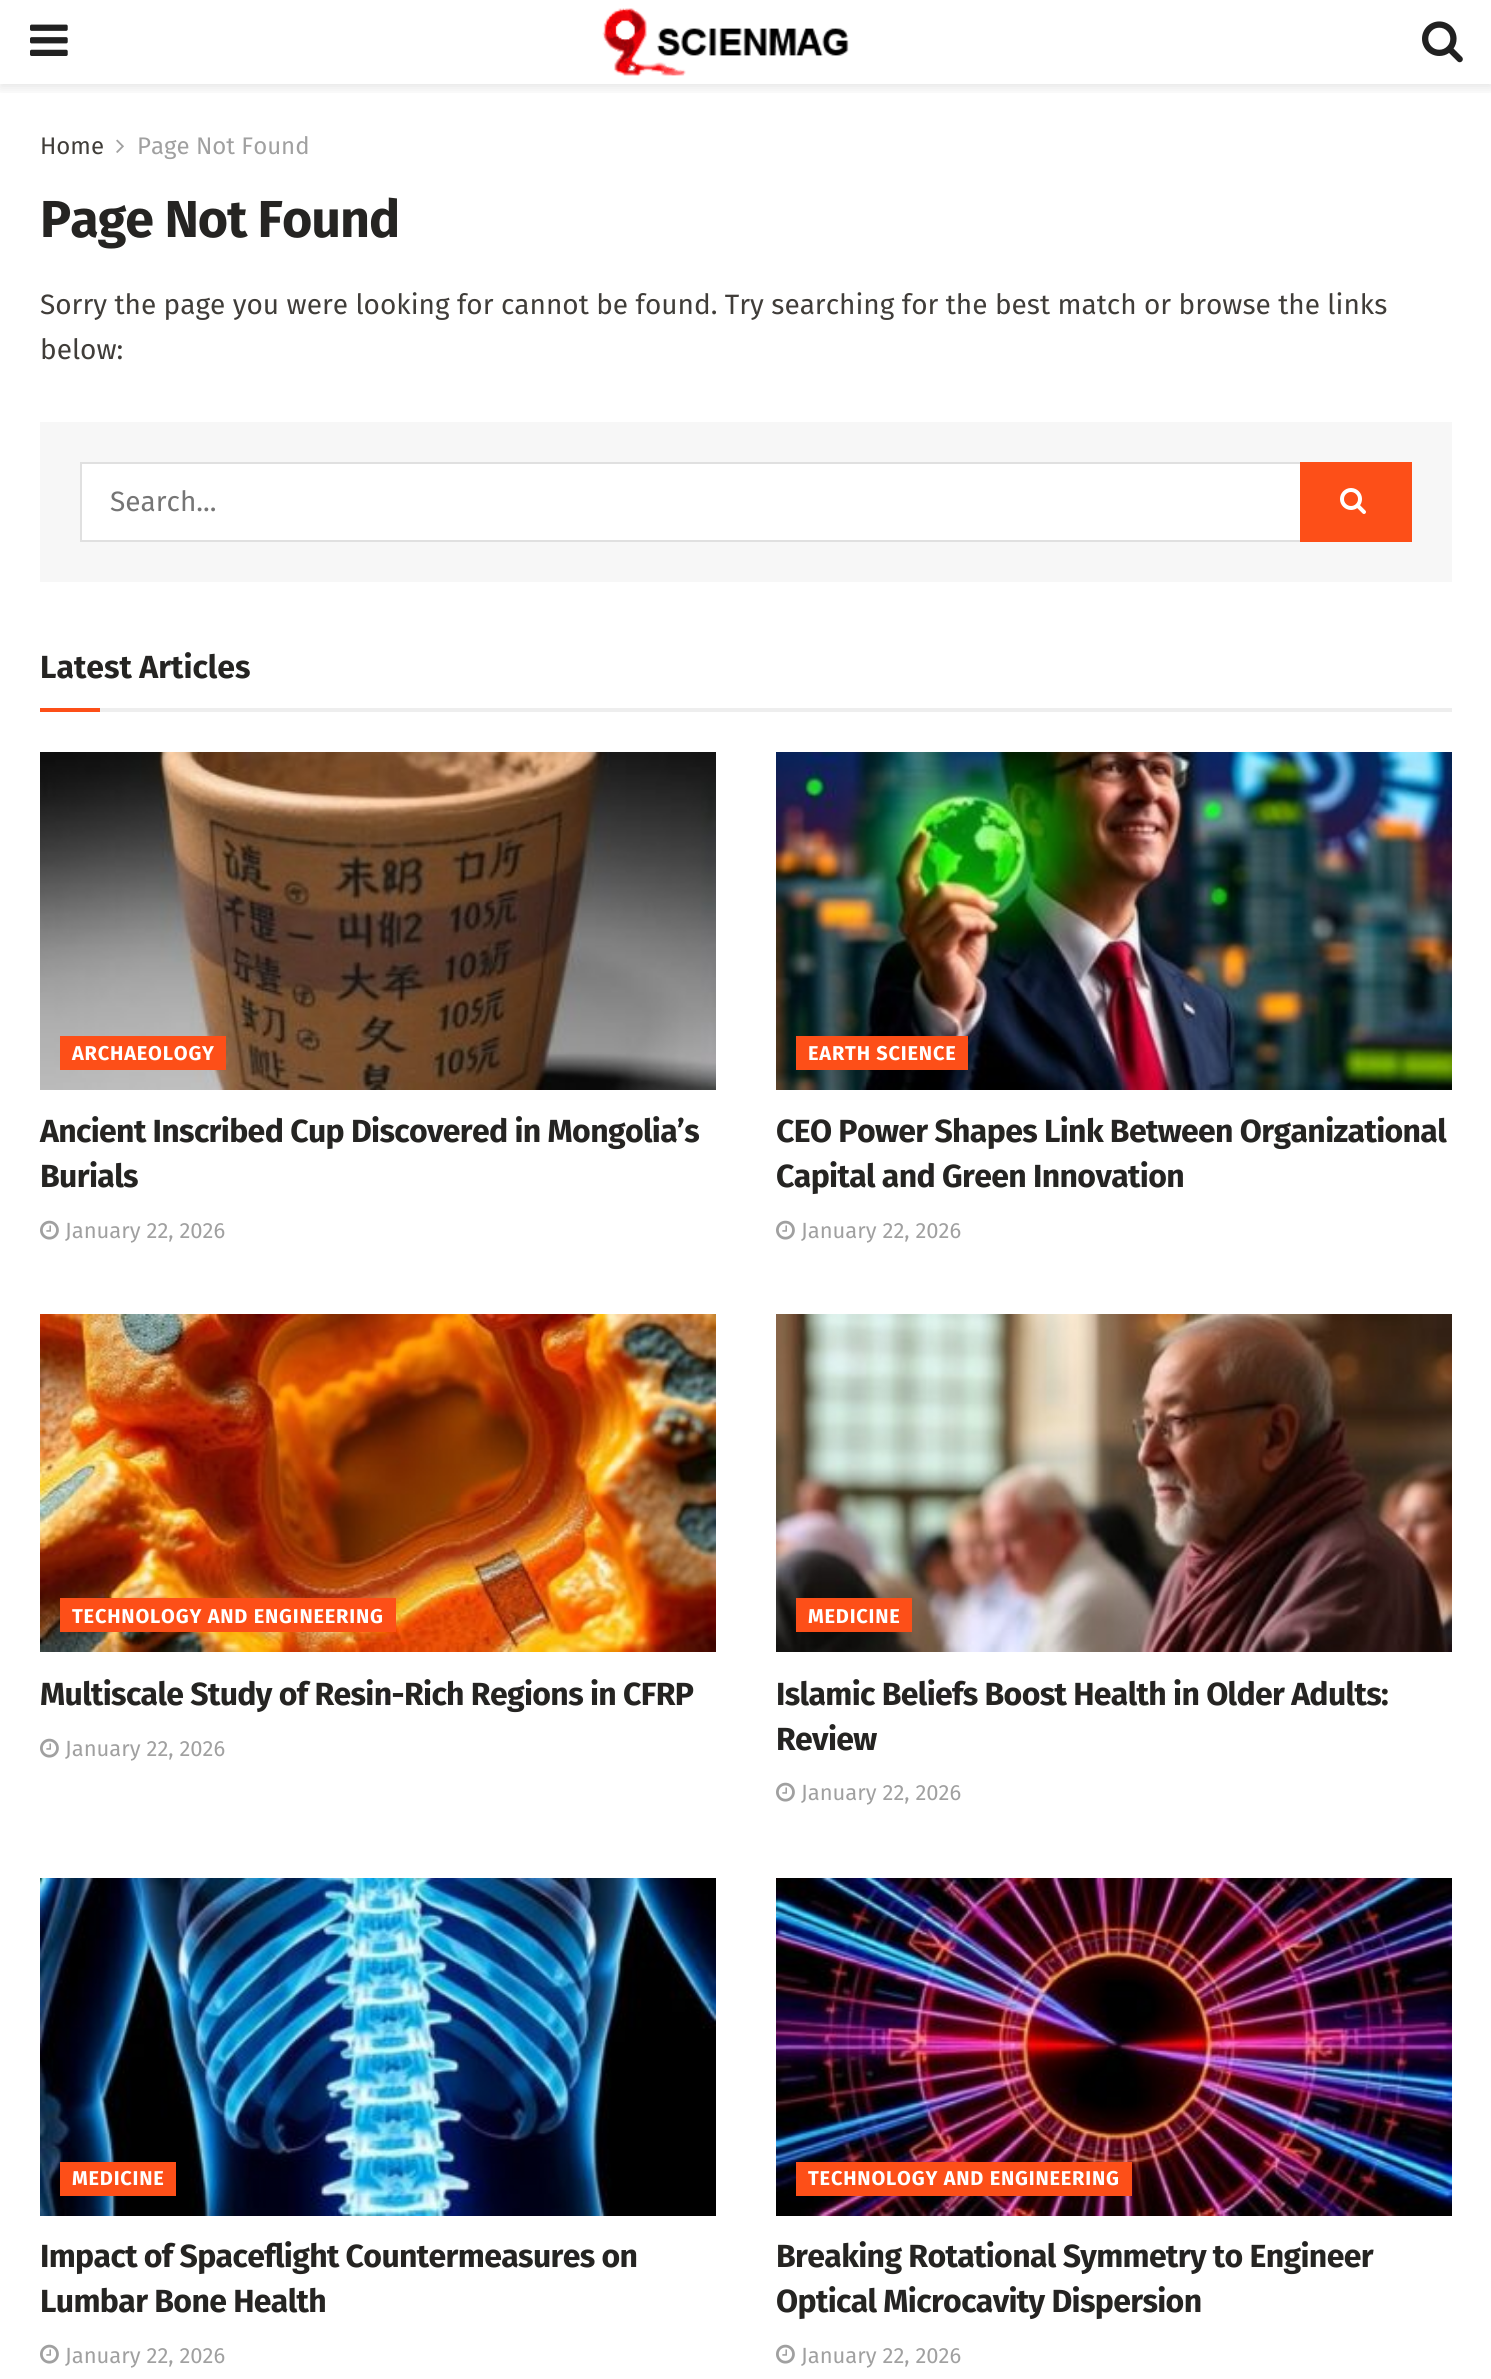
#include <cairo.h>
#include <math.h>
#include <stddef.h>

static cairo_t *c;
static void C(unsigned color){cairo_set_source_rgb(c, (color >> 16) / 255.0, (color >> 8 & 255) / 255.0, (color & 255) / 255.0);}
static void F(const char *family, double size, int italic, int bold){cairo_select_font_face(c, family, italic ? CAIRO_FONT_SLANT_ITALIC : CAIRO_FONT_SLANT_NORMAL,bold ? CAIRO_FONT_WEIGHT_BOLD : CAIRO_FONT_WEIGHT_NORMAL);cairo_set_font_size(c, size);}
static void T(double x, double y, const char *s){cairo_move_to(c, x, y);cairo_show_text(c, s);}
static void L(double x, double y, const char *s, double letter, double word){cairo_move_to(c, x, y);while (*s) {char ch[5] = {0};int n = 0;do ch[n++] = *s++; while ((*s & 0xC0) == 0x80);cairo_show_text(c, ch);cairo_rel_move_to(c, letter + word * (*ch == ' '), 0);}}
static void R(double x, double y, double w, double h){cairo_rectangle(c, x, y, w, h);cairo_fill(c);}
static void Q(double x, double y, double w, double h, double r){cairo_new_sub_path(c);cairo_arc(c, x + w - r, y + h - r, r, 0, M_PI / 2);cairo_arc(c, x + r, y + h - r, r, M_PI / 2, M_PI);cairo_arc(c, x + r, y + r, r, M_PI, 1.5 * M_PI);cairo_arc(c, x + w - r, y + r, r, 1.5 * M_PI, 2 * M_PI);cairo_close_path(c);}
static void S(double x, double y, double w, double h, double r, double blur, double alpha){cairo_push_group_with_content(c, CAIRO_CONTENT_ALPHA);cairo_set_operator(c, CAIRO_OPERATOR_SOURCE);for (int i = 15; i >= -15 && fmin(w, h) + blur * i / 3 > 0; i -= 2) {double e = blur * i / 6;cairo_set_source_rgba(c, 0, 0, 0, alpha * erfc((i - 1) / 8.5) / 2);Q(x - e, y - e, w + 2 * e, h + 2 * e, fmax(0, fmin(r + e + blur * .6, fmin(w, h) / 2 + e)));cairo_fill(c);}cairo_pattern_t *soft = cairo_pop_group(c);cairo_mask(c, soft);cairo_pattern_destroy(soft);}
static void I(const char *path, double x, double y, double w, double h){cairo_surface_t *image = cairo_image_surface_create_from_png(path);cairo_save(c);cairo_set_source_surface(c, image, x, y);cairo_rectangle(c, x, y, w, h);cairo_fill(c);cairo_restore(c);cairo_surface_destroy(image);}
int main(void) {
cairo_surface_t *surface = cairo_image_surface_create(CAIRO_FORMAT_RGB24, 1491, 2379);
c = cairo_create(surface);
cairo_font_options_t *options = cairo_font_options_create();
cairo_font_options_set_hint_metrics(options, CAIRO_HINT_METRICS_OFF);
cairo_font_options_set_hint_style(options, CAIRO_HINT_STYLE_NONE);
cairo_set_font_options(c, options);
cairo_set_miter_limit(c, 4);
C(0xffffff);
cairo_paint(c);
cairo_save(c);
cairo_rectangle(c,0,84,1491,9);
cairo_clip(c);
C(0x000000);
S(0,4,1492,84,0,6,.1);
cairo_restore(c);
I("1.png",30,24,38,32);
I("2.png",602,8,247,68);
I("3.png",1422,21,41,42);
F("Fira Sans",24,0,0);
C(0x403d39);
T(40,154,"Home");
I("4.png",116,139,8,14);
C(0xa0a0a0);
T(137,154,"Page Not Found");
F("Fira Sans",52,0,1);
C(0x252422);
L(40,237,"Page Not Found",-1,0);
F("Fira Sans",28,0,0);
C(0x403d39);
T(40,314,"Sorry the page you were looking for cannot be found. Try searching for the best match or browse the links");
T(40,359,"below:");
C(0xf7f7f7);
R(40,422,1412,160);
C(0xffffff);
R(82,464,1218,76);
cairo_rectangle(c,81,463,1330,78);
C(0xe0e0e0);
cairo_stroke(c);
C(0x757575);
T(110,511,"Search...");
C(0xfd4f18);
R(1300,462,112,80);
I("5.png",1340,488,26,26);
C(0xeeeeee);
R(100,708,1352,4);
F("Fira Sans",32,0,1);
C(0x252422);
T(40,678,"Latest Articles");
C(0xfd4f18);
R(40,708,60,4);
I("6.png",40,752,676,338);
R(60,1036,166,34);
F("Fira Sans",20,0,1);
C(0xffffff);
L(72,1060,"ARCHAEOLOGY",.8,0);
F("Fira Sans",32,0,1);
C(0x252422);
L(40,1142,"Ancient Inscribed Cup Discovered in Mongolia’s",-.65,0);
L(40,1187,"Burials",-.65,0);
I("7.png",40,1220,19,20);
F("Fira Sans",22,0,0);
C(0xa0a0a0);
T(65,1238,"January 22, 2026");
I("8.png",776,752,676,338);
C(0xfd4f18);
R(796,1036,172,34);
F("Fira Sans",20,0,1);
C(0xffffff);
L(808,1060,"EARTH SCIENCE",.8,0);
F("Fira Sans",32,0,1);
C(0x252422);
L(776,1142,"CEO Power Shapes Link Between Organizational",-.65,0);
L(776,1187,"Capital and Green Innovation",-.65,0);
I("7.png",776,1220,19,20);
F("Fira Sans",22,0,0);
C(0xa0a0a0);
T(801,1238,"January 22, 2026");
I("9.png",40,1314,676,338);
C(0xfd4f18);
R(60,1598,336,34);
F("Fira Sans",20,0,1);
C(0xffffff);
L(72,1623,"TECHNOLOGY AND ENGINEERING",.8,0);
F("Fira Sans",32,0,1);
C(0x252422);
L(40,1705,"Multiscale Study of Resin-Rich Regions in CFRP",-.65,0);
I("7.png",40,1738,19,20);
F("Fira Sans",22,0,0);
C(0xa0a0a0);
T(65,1756,"January 22, 2026");
I("10.png",776,1314,676,338);
C(0xfd4f18);
R(796,1598,116,34);
F("Fira Sans",20,0,1);
C(0xffffff);
L(808,1623,"MEDICINE",.8,0);
F("Fira Sans",32,0,1);
C(0x252422);
L(776,1705,"Islamic Beliefs Boost Health in Older Adults:",-.65,0);
L(776,1750,"Review",-.65,0);
I("7.png",776,1782,19,20);
F("Fira Sans",22,0,0);
C(0xa0a0a0);
T(801,1800,"January 22, 2026");
I("11.png",40,1878,676,338);
C(0xfd4f18);
R(60,2162,116,34);
F("Fira Sans",20,0,1);
C(0xffffff);
L(72,2185,"MEDICINE",.8,0);
F("Fira Sans",32,0,1);
C(0x252422);
L(40,2267,"Impact of Spaceflight Countermeasures on",-.65,0);
L(40,2312,"Lumbar Bone Health",-.65,0);
I("7.png",40,2344,19,20);
F("Fira Sans",22,0,0);
C(0xa0a0a0);
T(65,2363,"January 22, 2026");
I("12.png",776,1878,676,338);
C(0xfd4f18);
R(796,2162,336,34);
F("Fira Sans",20,0,1);
C(0xffffff);
L(808,2185,"TECHNOLOGY AND ENGINEERING",.8,0);
F("Fira Sans",32,0,1);
C(0x252422);
L(776,2267,"Breaking Rotational Symmetry to Engineer",-.65,0);
L(776,2312,"Optical Microcavity Dispersion",-.65,0);
I("7.png",776,2344,19,20);
F("Fira Sans",22,0,0);
C(0xa0a0a0);
T(801,2363,"January 22, 2026");
cairo_surface_write_to_png(surface, "o.png");
cairo_font_options_destroy(options);
cairo_destroy(c);
cairo_surface_destroy(surface);
return 0;
}
